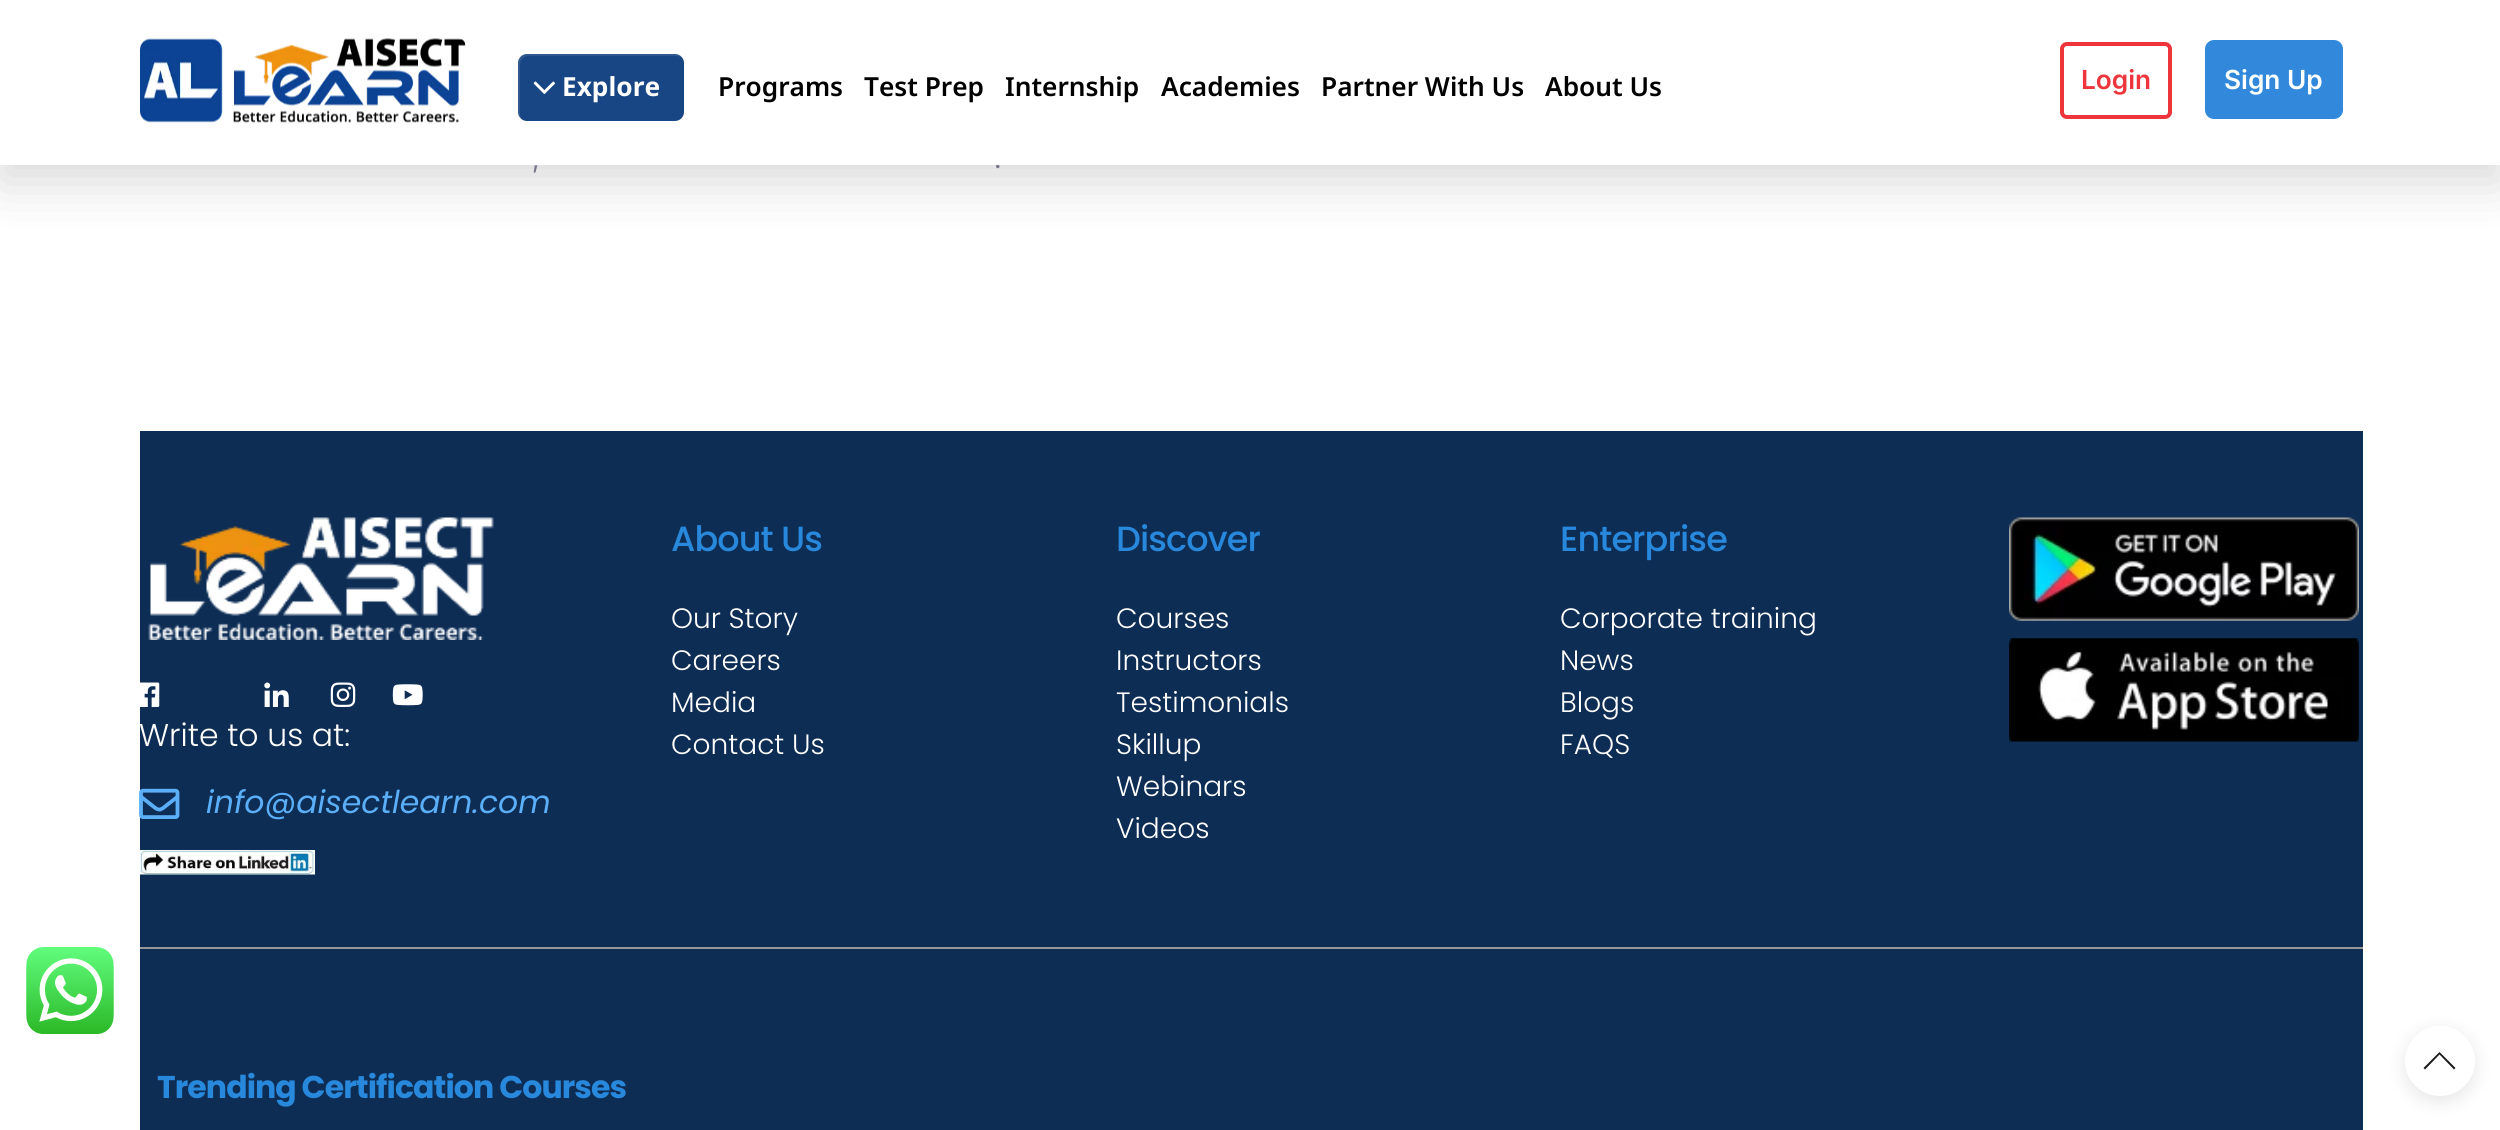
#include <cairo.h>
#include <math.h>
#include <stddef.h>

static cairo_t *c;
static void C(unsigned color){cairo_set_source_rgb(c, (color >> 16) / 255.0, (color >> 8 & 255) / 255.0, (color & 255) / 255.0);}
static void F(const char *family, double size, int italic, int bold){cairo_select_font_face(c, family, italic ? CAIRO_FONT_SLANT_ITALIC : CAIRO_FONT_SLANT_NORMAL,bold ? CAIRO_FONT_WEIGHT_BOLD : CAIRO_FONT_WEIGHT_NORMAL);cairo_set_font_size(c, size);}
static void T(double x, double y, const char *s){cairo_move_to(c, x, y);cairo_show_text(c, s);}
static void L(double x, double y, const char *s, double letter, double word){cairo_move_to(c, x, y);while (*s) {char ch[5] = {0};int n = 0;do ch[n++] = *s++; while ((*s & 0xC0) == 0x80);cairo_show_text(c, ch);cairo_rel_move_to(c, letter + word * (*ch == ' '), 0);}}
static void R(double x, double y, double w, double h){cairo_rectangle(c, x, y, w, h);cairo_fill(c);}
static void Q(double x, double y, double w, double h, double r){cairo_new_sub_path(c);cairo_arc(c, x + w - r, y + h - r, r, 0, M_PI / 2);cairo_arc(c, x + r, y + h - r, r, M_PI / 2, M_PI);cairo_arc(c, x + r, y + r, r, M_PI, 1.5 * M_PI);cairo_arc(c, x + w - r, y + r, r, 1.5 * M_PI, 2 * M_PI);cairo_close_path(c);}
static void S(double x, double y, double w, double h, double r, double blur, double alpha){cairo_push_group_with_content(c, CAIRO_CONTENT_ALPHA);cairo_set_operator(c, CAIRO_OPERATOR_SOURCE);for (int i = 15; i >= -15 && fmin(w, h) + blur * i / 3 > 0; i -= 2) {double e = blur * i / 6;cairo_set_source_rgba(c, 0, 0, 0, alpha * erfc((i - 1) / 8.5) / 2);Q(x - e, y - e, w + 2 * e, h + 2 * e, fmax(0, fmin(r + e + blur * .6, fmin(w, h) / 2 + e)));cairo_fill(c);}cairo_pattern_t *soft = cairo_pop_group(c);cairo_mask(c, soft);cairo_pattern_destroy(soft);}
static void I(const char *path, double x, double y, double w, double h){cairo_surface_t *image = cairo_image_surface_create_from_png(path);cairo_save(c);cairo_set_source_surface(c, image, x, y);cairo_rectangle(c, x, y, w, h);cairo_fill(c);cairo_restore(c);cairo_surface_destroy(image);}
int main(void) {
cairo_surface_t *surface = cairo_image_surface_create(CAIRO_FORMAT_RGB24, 2500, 1130);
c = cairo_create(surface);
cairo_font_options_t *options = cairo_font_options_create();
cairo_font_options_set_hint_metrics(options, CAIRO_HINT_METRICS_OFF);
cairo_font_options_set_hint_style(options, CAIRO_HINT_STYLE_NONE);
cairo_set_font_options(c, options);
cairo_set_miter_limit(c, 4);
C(0xffffff);
cairo_paint(c);
C(0x000000);
S(0,18,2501,164,0,26,.15);
F("Inter",26.25,0,0);
C(0x757589);
T(994,168,".");
C(0xffffff);
R(0,0,2500,165);
I("1.png",140,38,326,85);
C(0x184685);
Q(518,54,166,67,9);
cairo_fill(c);
cairo_set_source_rgba(c,1,1,1,0.1);
cairo_new_path(c);
cairo_move_to(c,528,56);
cairo_line_to(c,677,56);
cairo_curve_to(c,679,56,681,57,682,58);
cairo_curve_to(c,681,55,678,54,675,54);
cairo_line_to(c,527,54);
cairo_curve_to(c,522,54,518,58,518,63);
cairo_line_to(c,518,112);
cairo_curve_to(c,518,115,520,118,522,120);
cairo_curve_to(c,521,118,520,116,520,114);
cairo_line_to(c,520,65);
cairo_curve_to(c,520,60,524,56,528,56);
cairo_close_path(c);
cairo_fill(c);
I("2.png",533,81,22,13);
F("Noto Sans",26.25,0,1);
C(0xffffff);
T(562,96,"Explore");
F("Noto Sans SemiBold",26.25,0,0);
C(0x000000);
T(718,96,"Programs");
T(864,96,"Test Prep");
T(1005,96,"Internship");
T(1161,96,"Academies");
T(1321,96,"Partner With Us");
T(1545,96,"About Us");
Q(2062,44,108,73,5);
C(0xee353c);
cairo_set_line_width(c,4);
cairo_stroke(c);
F("Inter SemiBold",26.25,0,0);
T(2081,89,"Login");
C(0x3289dc);
Q(2207,42,134,75,7);
cairo_fill_preserve(c);
cairo_stroke(c);
C(0xffffff);
T(2224,89,"Sign Up");
F("Inter",26.25,0,0);
C(0x757589);
T(532,168,",");
I("3.png",26,947,88,87);
C(0x0d2d55);
R(140,431,2223,699);
F("Poppins Medium",35,0,0);
C(0x2888dc);
L(671,551,"About Us",-.9,0);
F("Poppins Light",28,0,0);
C(0xffffff);
T(671,628,"Our Story");
T(671,670,"Careers");
T(671,712,"Media");
T(671,754,"Contact Us");
F("Poppins Medium",35,0,0);
C(0x2888dc);
L(1116,551,"Discover",-.9,0);
F("Poppins Light",28,0,0);
C(0xffffff);
T(1116,628,"Courses");
T(1116,670,"Instructors");
T(1116,712,"Testimonials");
T(1116,754,"Skillup");
T(1116,796,"Webinars");
T(1116,838,"Videos");
F("Poppins Medium",35,0,0);
C(0x2888dc);
L(1560,551,"Enterprise",-.9,0);
F("Poppins Light",28,0,0);
C(0xffffff);
T(1560,628,"Corporate training");
T(1560,670,"News");
T(1560,712,"Blogs");
T(1560,754,"FAQS");
I("4.png",2009,517,350,104);
I("5.png",2009,638,350,104);
I("6.png",148,517,346,123);
I("7.png",140,682,20,25);
I("8.png",264,682,25,25);
I("9.png",330,682,26,25);
I("10.png",392,684,31,22);
F("Poppins Light",31.5,0,0);
T(139,746,"Write to us at:");
I("11.png",139,788,41,31);
F("Poppins",31.5,1,0);
C(0x5baff8);
T(206,813,"info@aisectlearn.com");
I("12.png",140,850,175,25);
C(0x989696);
R(140,947,2223,2);
F("Poppins",31.5,0,1);
C(0x2888dc);
L(157,1098,"Trending Certification Courses",-.9,0);
C(0x000000);
S(2405,1031,70,70,35,9,.1);
C(0xffffff);
cairo_arc(c,2440,1061,35,0,2 * M_PI);
cairo_fill(c);
C(0x191919);
cairo_new_path(c);
cairo_move_to(c,2455.5,1068);
cairo_line_to(c,2454,1069.5);
cairo_line_to(c,2439.5,1054.5);
cairo_line_to(c,2425,1069.5);
cairo_line_to(c,2423.5,1068);
cairo_line_to(c,2439.5,1052);
cairo_close_path(c);
cairo_fill(c);
cairo_surface_write_to_png(surface, "o.png");
cairo_font_options_destroy(options);
cairo_destroy(c);
cairo_surface_destroy(surface);
return 0;
}
